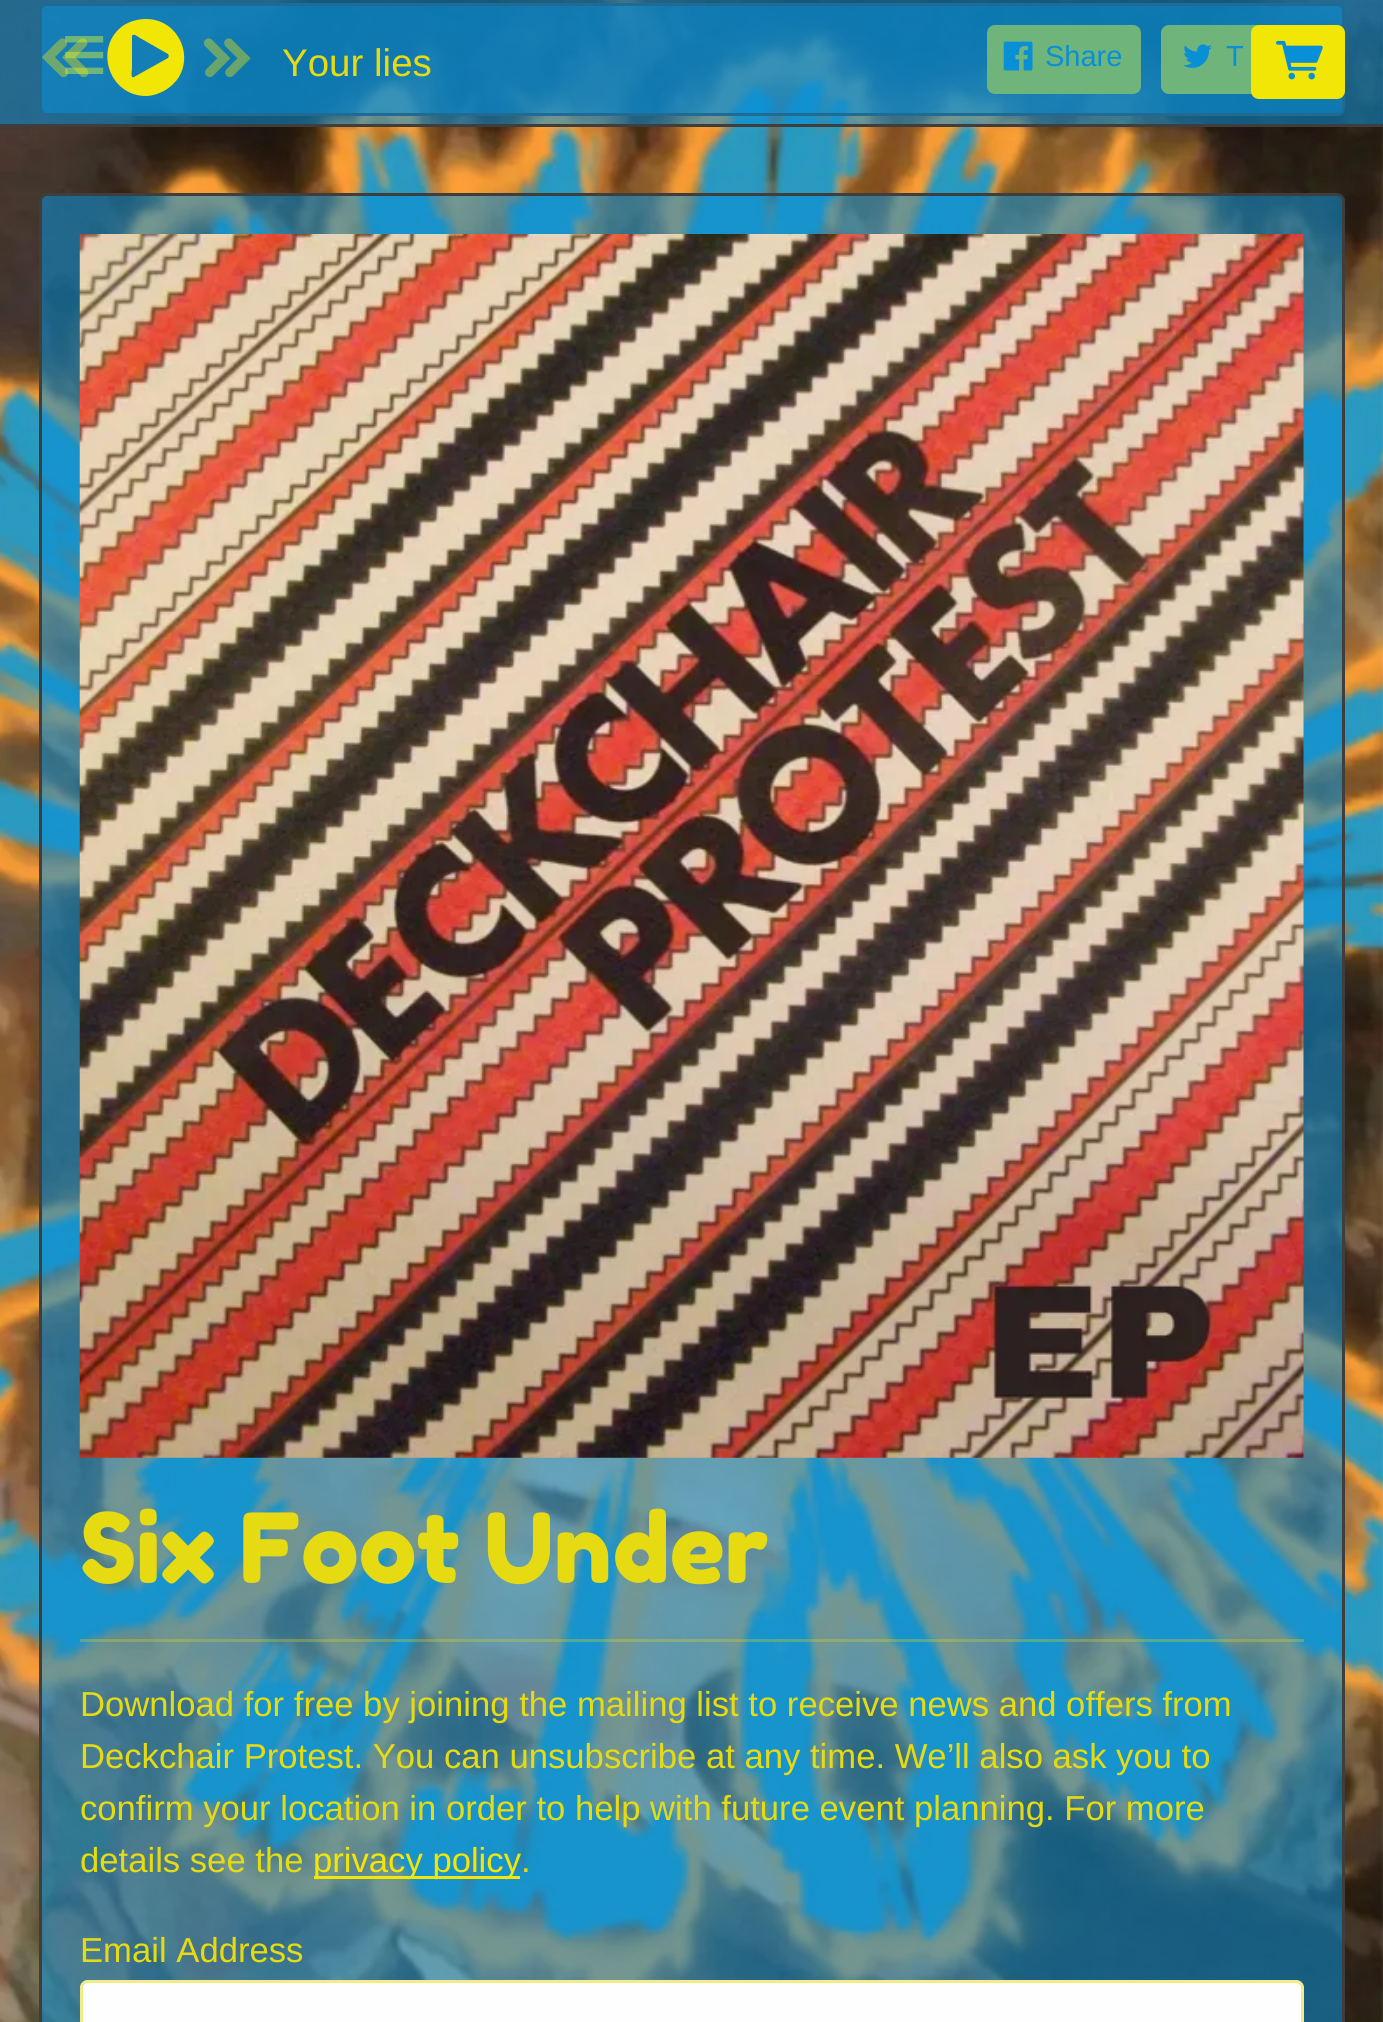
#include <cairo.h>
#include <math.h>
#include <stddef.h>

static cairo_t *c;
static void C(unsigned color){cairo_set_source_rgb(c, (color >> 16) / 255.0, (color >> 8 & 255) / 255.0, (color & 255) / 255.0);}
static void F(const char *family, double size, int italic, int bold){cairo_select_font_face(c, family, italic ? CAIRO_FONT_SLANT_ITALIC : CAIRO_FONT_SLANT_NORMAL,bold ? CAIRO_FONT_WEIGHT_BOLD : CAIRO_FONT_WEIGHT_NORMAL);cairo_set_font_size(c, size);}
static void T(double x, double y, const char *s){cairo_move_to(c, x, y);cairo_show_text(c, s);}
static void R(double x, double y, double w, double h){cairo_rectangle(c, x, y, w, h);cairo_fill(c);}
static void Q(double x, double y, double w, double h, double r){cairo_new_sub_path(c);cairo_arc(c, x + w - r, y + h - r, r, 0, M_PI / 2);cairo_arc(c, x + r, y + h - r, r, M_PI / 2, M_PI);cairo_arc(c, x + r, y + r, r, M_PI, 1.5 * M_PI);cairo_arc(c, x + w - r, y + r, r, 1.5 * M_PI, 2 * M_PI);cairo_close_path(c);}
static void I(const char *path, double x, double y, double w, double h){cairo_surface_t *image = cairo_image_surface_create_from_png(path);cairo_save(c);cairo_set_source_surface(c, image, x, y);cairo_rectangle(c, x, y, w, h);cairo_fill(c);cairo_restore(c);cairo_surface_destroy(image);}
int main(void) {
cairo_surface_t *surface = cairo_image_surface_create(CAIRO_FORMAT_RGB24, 1383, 2022);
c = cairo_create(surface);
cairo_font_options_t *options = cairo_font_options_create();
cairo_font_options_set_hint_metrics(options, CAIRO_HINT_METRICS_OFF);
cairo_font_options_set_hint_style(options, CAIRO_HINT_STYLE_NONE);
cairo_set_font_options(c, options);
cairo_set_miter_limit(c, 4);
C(0xffffff);
cairo_paint(c);
I("1.png",0,0,1383,2022);
cairo_set_source_rgba(c,0.035,0.561,0.843,0.56);
Q(40.5,4.5,1303,110,6.5);
cairo_fill_preserve(c);
C(0x3e3e3e);
cairo_set_line_width(c,3);
cairo_stroke(c);
F("DejaVu Sans",50,0,1);
C(0xf2e606);
T(61,74,"☰");
Q(987,25,154,69,8);
cairo_fill(c);
I("2.png",1003,41,30,30);
F("Liberation Sans",29,0,0);
C(0x098fd7);
T(1045,66,"Share");
C(0xf2e606);
Q(1161,25,162,69,8);
cairo_fill(c);
I("3.png",1183,44,29,24);
C(0x098fd7);
T(1226,66,"T");
cairo_set_source_rgba(c,0.035,0.561,0.843,0.56);
R(0,0,1383,124);
C(0x3e3e3e);
R(0,124,1383,3);
I("4.png",41,38,48,40);
C(0xf2e606);
cairo_new_path(c);
cairo_move_to(c,146,19);
cairo_curve_to(c,138,19,131,21,124,25);
cairo_curve_to(c,93,46,108,96,146,96);
cairo_curve_to(c,153,96,161,93,167,89);
cairo_curve_to(c,199,68,183,19,146,19);
cairo_close_path(c);
cairo_move_to(c,168,58);
cairo_line_to(c,134,77);
cairo_curve_to(c,130,79,132,69,132,69);
cairo_line_to(c,132,36);
cairo_curve_to(c,133,33,137,36,140,38);
cairo_line_to(c,168,54);
cairo_curve_to(c,169,55,169,57,168,58);
cairo_close_path(c);
cairo_fill(c);
I("5.png",204,38,47,39);
F("Liberation Sans",38.5,0,0);
C(0xe6db12);
T(282,76,"Your lies");
C(0xf2e606);
Q(1251,25,94,74,8);
cairo_fill(c);
I("6.png",1276,40,47,40);
cairo_set_source_rgba(c,0.035,0.561,0.843,0.56);
Q(40.5,194.5,1303,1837,6.5);
cairo_fill_preserve(c);
C(0x3e3e3e);
cairo_stroke(c);
I("7.png",79,234,1225,1224);
F("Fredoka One",96.25,0,0);
C(0xe6db12);
T(80,1583,"Six Foot Under");
cairo_set_source_rgba(c,0.902,0.859,0.071,0.3);
R(80,1639,1224,3);
F("Liberation Sans",34.65,0,0);
C(0xe6db12);
T(80,1716,"Download for free by joining the mailing list to receive news and offers from");
T(80,1768,"Deckchair Protest. You can unsubscribe at any time. We’ll also ask you to");
T(80,1820,"confirm your location in order to help with future event planning. For more");
T(80,1872,"details see the");
C(0xf2e606);
R(314,1876,206,3);
T(313,1872,"privacy policy");
C(0xe6db12);
T(521,1872,".");
T(80,1962,"Email Address");
C(0xfefefe);
Q(80,1980,1224,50,8);
cairo_fill(c);
Q(81.5,1981.5,1221,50,6.5);
cairo_set_source_rgba(c,0.902,0.859,0.071,0.5);
cairo_stroke(c);
cairo_surface_write_to_png(surface, "o.png");
cairo_font_options_destroy(options);
cairo_destroy(c);
cairo_surface_destroy(surface);
return 0;
}
